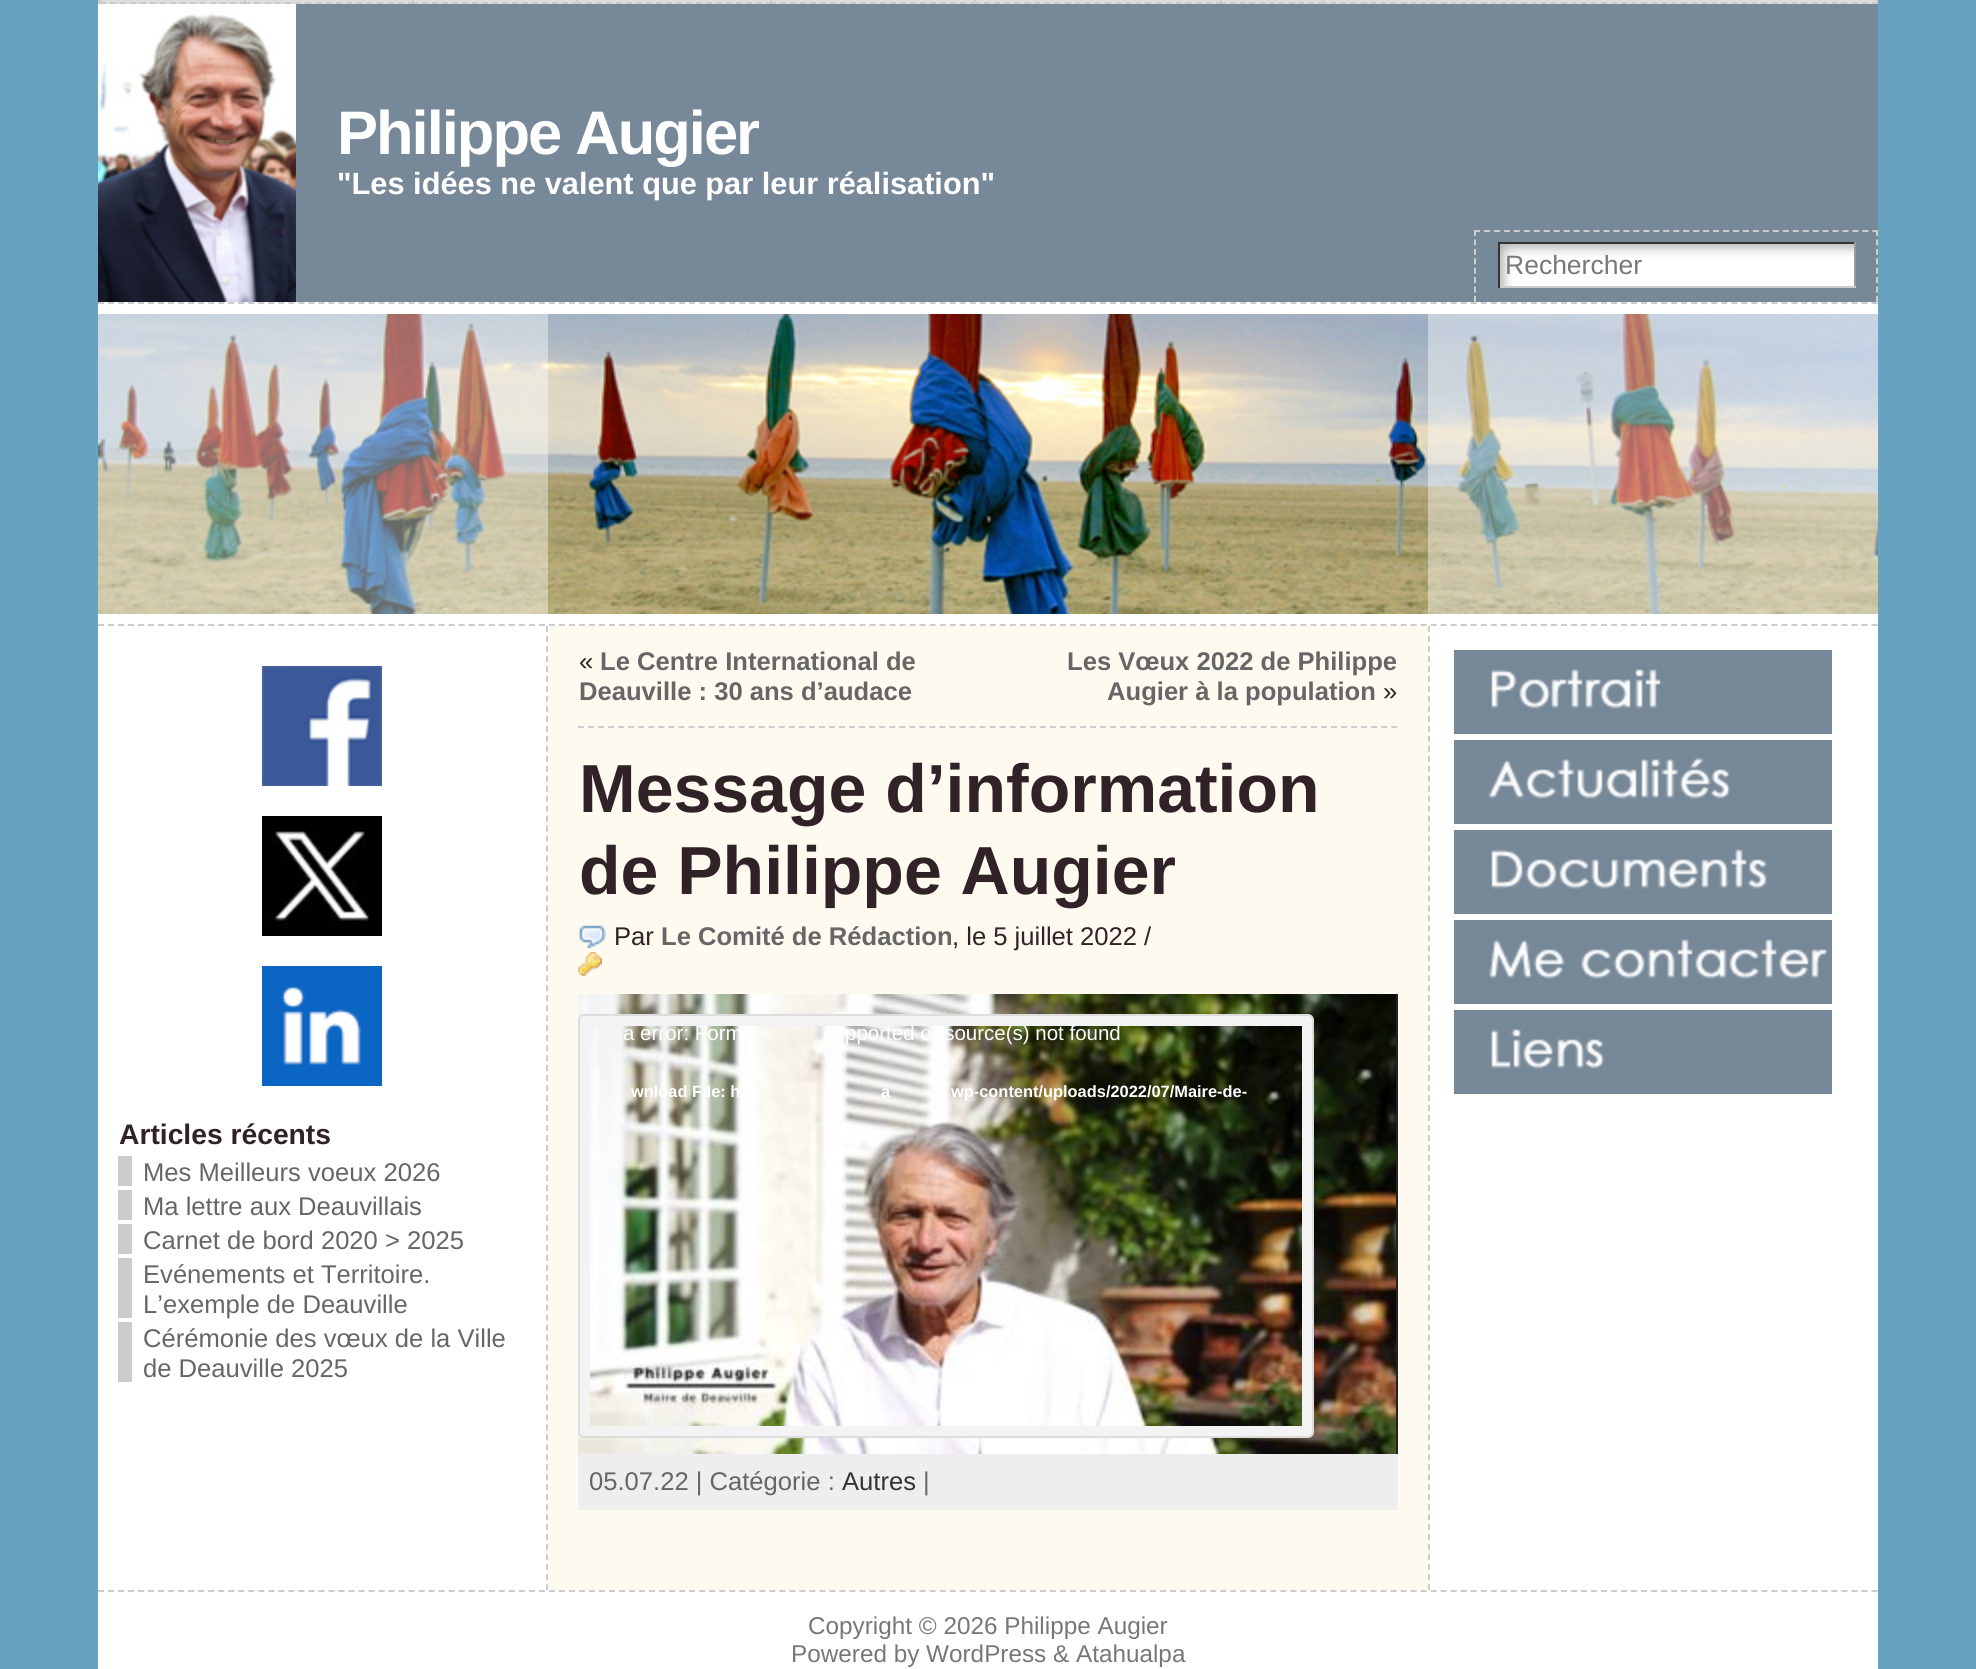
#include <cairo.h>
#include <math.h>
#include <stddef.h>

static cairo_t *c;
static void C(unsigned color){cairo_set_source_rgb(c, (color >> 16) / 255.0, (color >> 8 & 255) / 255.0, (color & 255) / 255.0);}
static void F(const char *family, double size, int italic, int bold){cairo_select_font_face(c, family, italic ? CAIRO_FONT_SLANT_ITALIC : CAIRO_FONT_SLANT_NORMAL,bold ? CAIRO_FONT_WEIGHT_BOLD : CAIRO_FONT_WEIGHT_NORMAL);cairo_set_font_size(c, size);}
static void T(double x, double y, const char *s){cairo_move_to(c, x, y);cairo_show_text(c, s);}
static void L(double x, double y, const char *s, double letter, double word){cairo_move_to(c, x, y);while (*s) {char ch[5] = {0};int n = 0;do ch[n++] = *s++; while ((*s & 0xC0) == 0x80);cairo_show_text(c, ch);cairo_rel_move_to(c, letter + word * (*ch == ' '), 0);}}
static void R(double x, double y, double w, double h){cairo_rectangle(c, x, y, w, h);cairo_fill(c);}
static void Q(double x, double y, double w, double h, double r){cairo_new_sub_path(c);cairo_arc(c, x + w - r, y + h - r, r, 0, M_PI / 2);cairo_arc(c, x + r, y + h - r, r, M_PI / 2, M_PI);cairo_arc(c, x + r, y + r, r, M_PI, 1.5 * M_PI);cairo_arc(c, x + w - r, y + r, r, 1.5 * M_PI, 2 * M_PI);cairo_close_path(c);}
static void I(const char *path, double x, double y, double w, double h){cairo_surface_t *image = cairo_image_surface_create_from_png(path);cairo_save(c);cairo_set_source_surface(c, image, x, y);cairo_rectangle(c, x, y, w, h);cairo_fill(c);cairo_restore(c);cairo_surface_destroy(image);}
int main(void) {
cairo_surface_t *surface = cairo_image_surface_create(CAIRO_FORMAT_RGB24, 1976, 1669);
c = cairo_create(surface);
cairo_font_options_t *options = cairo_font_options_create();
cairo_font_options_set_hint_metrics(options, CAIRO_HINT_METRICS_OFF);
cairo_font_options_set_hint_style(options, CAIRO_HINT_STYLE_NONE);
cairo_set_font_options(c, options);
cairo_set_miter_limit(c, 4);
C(0x67a2c0);
cairo_paint(c);
C(0xdddddd);
R(1324,0,554,4);
cairo_new_path(c);
cairo_move_to(c,1877,-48);
cairo_line_to(c,1877,4);
C(0xcccccc);
cairo_set_dash(c,(double[]){6,3.2},2,0);
cairo_stroke(c);
cairo_new_path(c);
cairo_move_to(c,98,3);
cairo_line_to(c,1878,3);
cairo_set_dash(c,(double[]){6,4.02},2,0);
cairo_stroke(c);
cairo_new_path(c);
cairo_move_to(c,99,-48);
cairo_line_to(c,99,4);
cairo_set_dash(c,(double[]){6,3.2},2,0);
cairo_stroke(c);
C(0xdddddd);
R(100,0,146,4);
cairo_new_path(c);
cairo_move_to(c,100,3);
cairo_line_to(c,246,3);
C(0xcccccc);
cairo_set_dash(c,(double[]){6,4},2,0);
cairo_stroke(c);
cairo_new_path(c);
cairo_move_to(c,101,-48);
cairo_line_to(c,101,4);
cairo_set_dash(c,(double[]){6,3.2},2,0);
cairo_stroke(c);
C(0xdddddd);
R(244,0,170,4);
cairo_new_path(c);
cairo_move_to(c,244,3);
cairo_line_to(c,414,3);
C(0xcccccc);
cairo_set_dash(c,(double[]){6,4.24},2,0);
cairo_stroke(c);
cairo_new_path(c);
cairo_move_to(c,245,-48);
cairo_line_to(c,245,4);
cairo_set_dash(c,(double[]){6,3.2},2,0);
cairo_stroke(c);
C(0xdddddd);
R(412,0,166,4);
cairo_new_path(c);
cairo_move_to(c,412,3);
cairo_line_to(c,578,3);
C(0xcccccc);
cairo_set_dash(c,(double[]){6,4},2,0);
cairo_stroke(c);
cairo_new_path(c);
cairo_move_to(c,413,-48);
cairo_line_to(c,413,4);
cairo_set_dash(c,(double[]){6,3.2},2,0);
cairo_stroke(c);
C(0xdddddd);
R(576,0,196,4);
cairo_new_path(c);
cairo_move_to(c,576,3);
cairo_line_to(c,772,3);
C(0xcccccc);
cairo_set_dash(c,(double[]){6,4},2,0);
cairo_stroke(c);
cairo_new_path(c);
cairo_move_to(c,577,-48);
cairo_line_to(c,577,4);
cairo_set_dash(c,(double[]){6,3.2},2,0);
cairo_stroke(c);
C(0xdddddd);
R(770,0,206,4);
cairo_new_path(c);
cairo_move_to(c,770,3);
cairo_line_to(c,976,3);
C(0xcccccc);
cairo_set_dash(c,(double[]){6,4},2,0);
cairo_stroke(c);
cairo_new_path(c);
cairo_move_to(c,771,-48);
cairo_line_to(c,771,4);
cairo_set_dash(c,(double[]){6,3.2},2,0);
cairo_stroke(c);
C(0xdddddd);
R(974,0,248,4);
cairo_new_path(c);
cairo_move_to(c,974,3);
cairo_line_to(c,1222,3);
C(0xcccccc);
cairo_set_dash(c,(double[]){6,4.08},2,0);
cairo_stroke(c);
cairo_new_path(c);
cairo_move_to(c,975,-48);
cairo_line_to(c,975,4);
cairo_set_dash(c,(double[]){6,3.2},2,0);
cairo_stroke(c);
C(0xdddddd);
R(1220,0,104,4);
cairo_new_path(c);
cairo_move_to(c,1323,-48);
cairo_line_to(c,1323,4);
C(0xcccccc);
cairo_stroke(c);
cairo_new_path(c);
cairo_move_to(c,1220,3);
cairo_line_to(c,1324,3);
cairo_set_dash(c,(double[]){6,3.8},2,0);
cairo_stroke(c);
cairo_new_path(c);
cairo_move_to(c,1221,-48);
cairo_line_to(c,1221,4);
cairo_set_dash(c,(double[]){6,3.2},2,0);
cairo_stroke(c);
C(0x778899);
R(296,4,1582,298);
I("1.png",98,4,198,298);
F("Liberation Sans",61.5,0,1);
C(0xffffff);
L(337,154,"Philippe Augier",-2,0);
F("Liberation Sans",30.75,0,1);
T(337,194,"\"Les idées ne valent que par leur réalisation\"");
cairo_new_path(c);
cairo_move_to(c,1474,231);
cairo_line_to(c,1878,231);
C(0xcccccc);
cairo_set_dash(c,(double[]){6,3.96},2,0);
cairo_stroke(c);
cairo_new_path(c);
cairo_move_to(c,1877,230);
cairo_line_to(c,1877,302);
cairo_set_dash(c,(double[]){6,3.42},2,0);
cairo_stroke(c);
cairo_new_path(c);
cairo_move_to(c,1475,230);
cairo_line_to(c,1475,302);
cairo_stroke(c);
I("2.png",1500,244,354,42);
C(0x333333);
R(1498,242,358,2);
C(0x999999);
R(1854,242,2,46);
C(0xcccccc);
R(1498,286,358,2);
C(0x333333);
R(1498,242,2,46);
F("Liberation Sans",26.5,0,0);
C(0x777777);
T(1505,274,"Rechercher");
C(0xffffff);
R(98,302,1780,12);
cairo_new_path(c);
cairo_move_to(c,98,303);
cairo_line_to(c,1878,303);
C(0xcccccc);
cairo_set_dash(c,(double[]){6,4.02},2,0);
cairo_stroke(c);
I("3.png",98,314,1780,300);
cairo_set_source_rgba(c,1,1,1,0.4);
R(98,314,450,300);
R(1428,314,450,300);
C(0xffffff);
R(98,614,1780,12);
cairo_new_path(c);
cairo_move_to(c,98,625);
cairo_line_to(c,1878,625);
C(0xcccccc);
cairo_stroke(c);
C(0xffffff);
R(98,626,450,964);
cairo_new_path(c);
cairo_move_to(c,547,626);
cairo_line_to(c,547,1590);
C(0xcccccc);
cairo_set_dash(c,(double[]){6,3.98},2,0);
cairo_stroke(c);
I("4.png",262,666,120,120);
I("5.png",262,816,120,120);
I("6.png",262,966,120,120);
F("Liberation Sans",28.25,0,1);
C(0x302226);
T(119,1144,"Articles récents");
C(0xcccccc);
R(118,1156,14,30);
F("Liberation Sans",25.6,0,0);
C(0x666666);
T(143,1181,"Mes Meilleurs voeux 2026");
C(0xcccccc);
R(118,1190,14,30);
C(0x666666);
T(143,1215,"Ma lettre aux Deauvillais");
C(0xcccccc);
R(118,1224,14,30);
C(0x666666);
T(143,1249,"Carnet de bord 2020 > 2025");
C(0xcccccc);
R(118,1258,14,60);
C(0x666666);
T(143,1283,"Evénements et Territoire.");
T(143,1313,"L’exemple de Deauville");
C(0xcccccc);
R(118,1322,14,60);
C(0x666666);
T(143,1347,"Cérémonie des vœux de la Ville");
T(143,1377,"de Deauville 2025");
C(0xfffaf0);
R(548,626,880,964);
cairo_new_path(c);
cairo_move_to(c,578,727);
cairo_line_to(c,1398,727);
C(0xcccccc);
cairo_set_dash(c,(double[]){6,4.04},2,0);
cairo_stroke(c);
C(0x302226);
T(579,670,"«");
F("Liberation Sans",25.6,0,1);
C(0x666666);
T(600,670,"Le Centre International de");
T(579,700,"Deauville : 30 ans d’audace");
T(1067,670,"Les Vœux 2022 de Philippe");
T(1107,700,"Augier à la population");
F("Liberation Sans",25.6,0,0);
C(0x302226);
T(1383,700,"»");
F("Liberation Sans",68,0,1);
T(579,812,"Message d’information");
T(579,894,"de Philippe Augier");
I("7.png",578,925,28,23);
F("Liberation Sans",25.6,0,0);
T(614,945,"Par");
F("Liberation Sans",25.6,0,1);
C(0x666666);
T(661,945,"Le Comité de Rédaction");
F("Liberation Sans",25.6,0,0);
C(0x302226);
T(952,945,", le 5 juillet 2022 /");
I("8.png",578,952,24,24);
C(0x222222);
R(1396,994,2,460);
I("9.png",578,994,818,460);
C(0xf3f3f3);
Q(579,1015,734,422,5);
cairo_fill_preserve(c);
C(0xdddddd);
cairo_set_dash(c,NULL,0,0);
cairo_stroke(c);
I("10.png",590,1026,712,400);
F("Liberation Sans",20.5,0,0);
C(0xffffff);
T(623,1040,"a error: Form");
T(845,1040,"pported or source(s) not found");
F("Liberation Sans",16.4,0,1);
T(631,1097,"wnload File: h");
T(881,1097,"a");
T(951,1097,"wp-content/uploads/2022/07/Maire-de-");
C(0xeeeeee);
R(578,1454,820,56);
F("Liberation Sans",25.6,0,0);
C(0x666666);
T(589,1490,"05.07.22 | Catégorie :");
C(0x333333);
T(842,1490,"Autres");
C(0x666666);
T(923,1490,"|");
C(0xffffff);
R(1428,626,450,964);
cairo_new_path(c);
cairo_move_to(c,1429,626);
cairo_line_to(c,1429,1590);
C(0xcccccc);
cairo_set_dash(c,(double[]){6,3.98},2,0);
cairo_stroke(c);
I("11.png",1454,650,378,84);
I("12.png",1454,740,378,84);
I("13.png",1454,830,378,84);
I("14.png",1454,920,378,84);
I("15.png",1454,1010,378,84);
C(0xffffff);
R(98,1590,1780,79);
cairo_new_path(c);
cairo_move_to(c,98,1591);
cairo_line_to(c,1878,1591);
C(0xcccccc);
cairo_set_dash(c,(double[]){6,4.02},2,0);
cairo_stroke(c);
F("Liberation Sans",24.3,0,0);
C(0x777777);
T(808,1634,"Copyright © 2026 Philippe Augier");
T(791,1662,"Powered by WordPress & Atahualpa");
cairo_surface_write_to_png(surface, "o.png");
cairo_font_options_destroy(options);
cairo_destroy(c);
cairo_surface_destroy(surface);
return 0;
}
